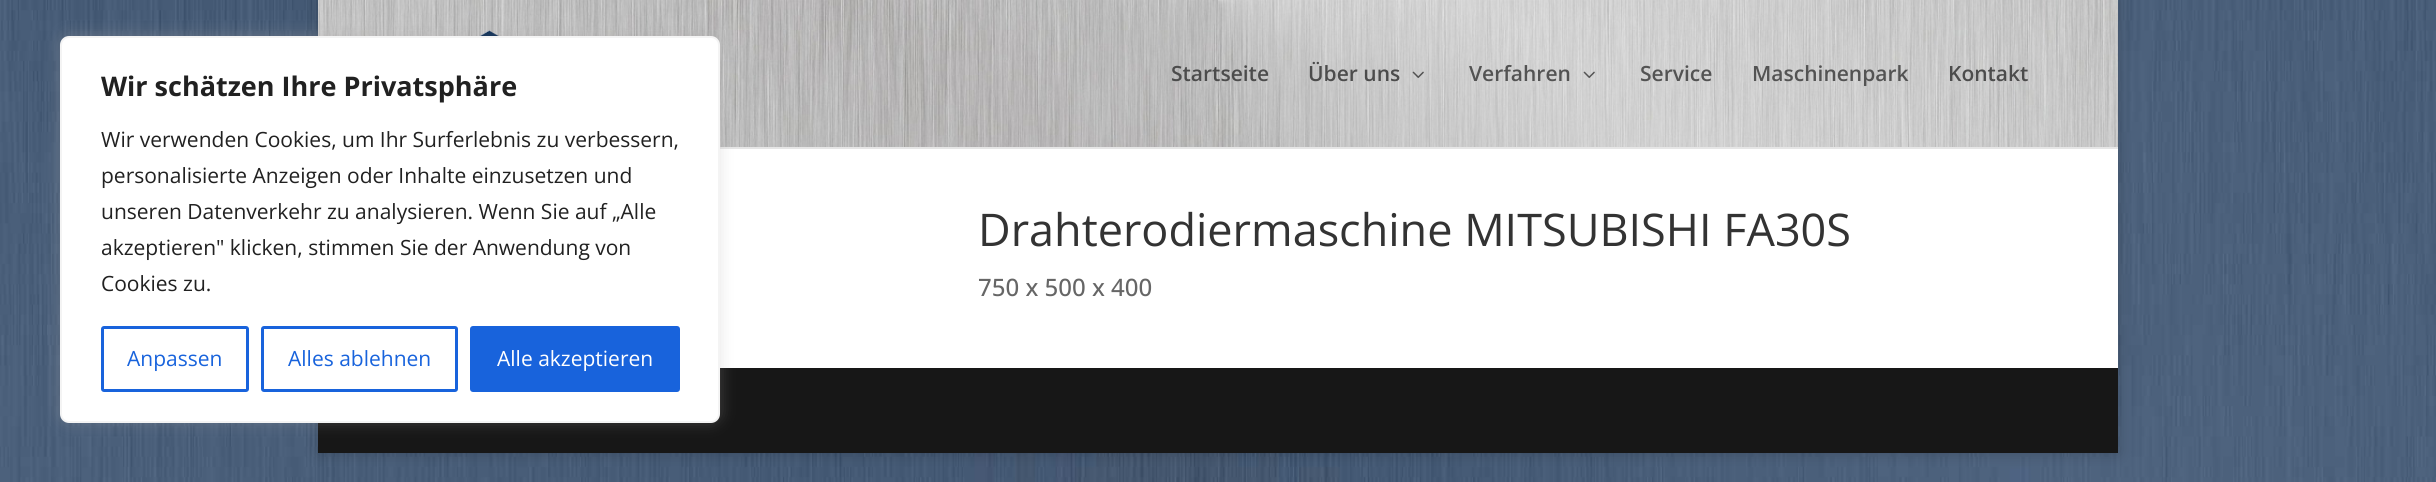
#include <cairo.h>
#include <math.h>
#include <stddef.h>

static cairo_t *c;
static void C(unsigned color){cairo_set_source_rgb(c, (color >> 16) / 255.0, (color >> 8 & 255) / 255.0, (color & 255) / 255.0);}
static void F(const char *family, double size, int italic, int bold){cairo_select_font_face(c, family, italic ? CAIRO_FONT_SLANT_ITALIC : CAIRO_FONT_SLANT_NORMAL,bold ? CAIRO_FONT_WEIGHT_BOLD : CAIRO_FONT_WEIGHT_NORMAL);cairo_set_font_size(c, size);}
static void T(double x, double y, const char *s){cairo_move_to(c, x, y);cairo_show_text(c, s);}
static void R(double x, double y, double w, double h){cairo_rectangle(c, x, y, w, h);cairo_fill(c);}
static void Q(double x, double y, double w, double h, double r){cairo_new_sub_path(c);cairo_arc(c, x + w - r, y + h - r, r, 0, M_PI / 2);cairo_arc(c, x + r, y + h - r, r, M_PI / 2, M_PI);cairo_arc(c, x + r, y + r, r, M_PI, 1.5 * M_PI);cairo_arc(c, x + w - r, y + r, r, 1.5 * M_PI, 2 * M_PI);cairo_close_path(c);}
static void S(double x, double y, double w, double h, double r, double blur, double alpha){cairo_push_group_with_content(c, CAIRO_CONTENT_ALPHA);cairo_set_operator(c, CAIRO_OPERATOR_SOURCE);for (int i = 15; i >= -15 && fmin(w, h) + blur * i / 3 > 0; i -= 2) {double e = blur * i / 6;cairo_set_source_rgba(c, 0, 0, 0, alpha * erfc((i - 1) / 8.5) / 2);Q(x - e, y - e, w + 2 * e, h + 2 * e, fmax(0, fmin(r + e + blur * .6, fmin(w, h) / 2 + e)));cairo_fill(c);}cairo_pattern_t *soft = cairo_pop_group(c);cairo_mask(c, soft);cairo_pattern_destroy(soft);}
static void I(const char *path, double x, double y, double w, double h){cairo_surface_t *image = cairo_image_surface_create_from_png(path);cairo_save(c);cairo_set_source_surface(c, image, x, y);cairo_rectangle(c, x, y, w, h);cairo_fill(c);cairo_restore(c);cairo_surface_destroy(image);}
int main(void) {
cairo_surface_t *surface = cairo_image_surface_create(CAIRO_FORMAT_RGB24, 2436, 482);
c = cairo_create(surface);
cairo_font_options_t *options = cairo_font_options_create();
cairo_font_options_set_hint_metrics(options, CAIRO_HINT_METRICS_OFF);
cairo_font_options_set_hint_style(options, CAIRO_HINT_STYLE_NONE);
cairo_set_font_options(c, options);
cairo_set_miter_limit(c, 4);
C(0xffffff);
cairo_paint(c);
I("1.png",0,0,2436,482);
C(0x000000);
S(318,0,1800,453,0,7.5,.2);
C(0xe6e6e6);
R(720,147,1398,2);
I("2.png",318,0,1800,147);
I("3.png",479,30,20,6);
C(0xffffff);
R(720,149,1398,219);
C(0x171717);
R(318,368,1800,85);
C(0xacabab);
S(60,35,660,387,9,7.5,.3);
C(0xffffff);
Q(61,37,658,385,8);
cairo_fill_preserve(c);
C(0xf4f4f4);
cairo_stroke(c);
F("Open Sans",27,0,1);
C(0x212121);
T(101,96,"Wir schätzen Ihre Privatsphäre");
F("Open Sans",21,0,0);
T(101,147,"Wir verwenden Cookies, um Ihr Surferlebnis zu verbessern,");
T(101,183,"personalisierte Anzeigen oder Inhalte einzusetzen und");
T(101,219,"unseren Datenverkehr zu analysieren. Wenn Sie auf „Alle");
T(101,255,"akzeptieren\" klicken, stimmen Sie der Anwendung von");
T(101,291,"Cookies zu.");
Q(102.5,327.5,145,63,1.5);
C(0x1863dc);
cairo_set_line_width(c,3);
cairo_stroke(c);
T(127,366,"Anpassen");
Q(262.5,327.5,194,63,1.5);
cairo_stroke(c);
T(288,366,"Alles ablehnen");
Q(471.5,327.5,207,63,1.5);
cairo_fill_preserve(c);
cairo_stroke(c);
C(0xffffff);
T(497,366,"Alle akzeptieren");
F("Open Sans SemiBold",21,0,0);
C(0x4c4c4c);
T(1171,81,"Startseite");
T(1308,81,"Über uns");
I("4.png",1412,71,12,7);
C(0x535353);
T(1469,81,"Verfahren");
I("5.png",1583,71,12,7);
T(1640,81,"Service");
T(1752,81,"Maschinenpark");
C(0x4c4c4c);
T(1948,81,"Kontakt");
F("Open Sans",45,0,0);
C(0x333333);
T(978,246,"Drahterodiermaschine MITSUBISHI FA30S");
F("Open Sans Medium",24,0,0);
C(0x666666);
T(978,296,"750 x 500 x 400");
cairo_surface_write_to_png(surface, "o.png");
cairo_font_options_destroy(options);
cairo_destroy(c);
cairo_surface_destroy(surface);
return 0;
}
